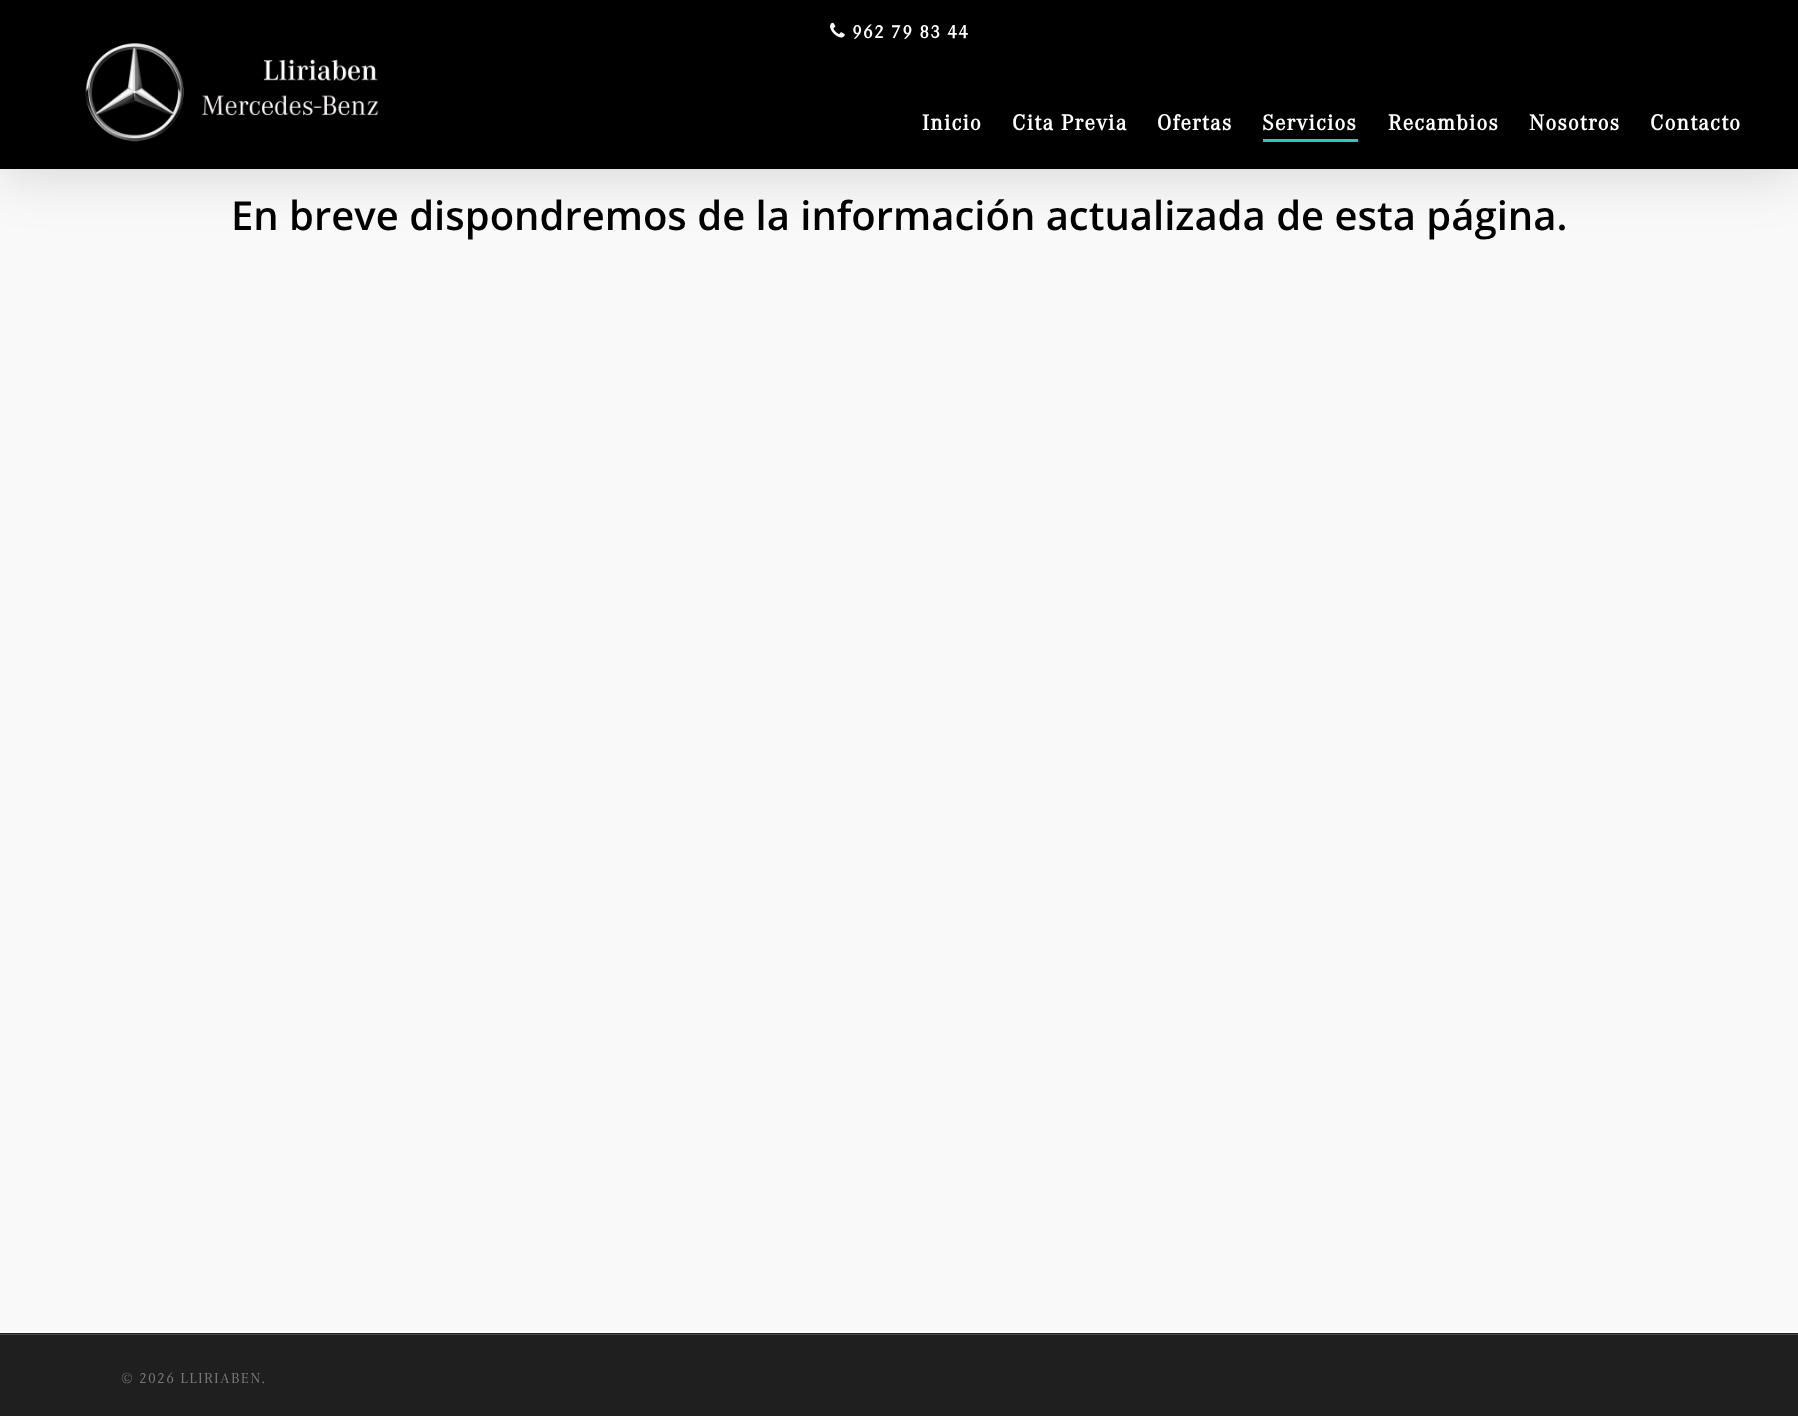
<svg xmlns="http://www.w3.org/2000/svg" width="1798" height="1416" viewBox="0 0 1798 1416">
  <style>
    .t1 { font: bold 18.75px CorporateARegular; letter-spacing: 1.25px; fill: #fff; }
    .t2 { font: bold 22.5px CorporateARegular; letter-spacing: 1.25px; fill: #fff; }
    .t3 { font: 600 40px Open Sans; fill: #000; }
    .t4 { font: 15px CorporateARegular; letter-spacing: 1.25px; fill: #777; }
  </style>
  <rect width="100%" height="100%" fill="#f9f9f9"/>
  <rect x="0" y="4" width="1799" height="169" fill="#00000026" filter="blur(28px)"/>
  <rect x="0" y="0" width="1798" height="169" fill="#000"/>
  <image x="830" y="22" width="15" height="16" href="images/1.png"/>
  <text x="852" y="38" class="t1">962 79 83 44</text>
  <image x="85" y="43" width="294" height="99" href="images/2.png"/>
  <text x="922" y="130" class="t2">Inicio</text>
  <text x="1012" y="130" class="t2">Cita Previa</text>
  <text x="1157" y="130" class="t2">Ofertas</text>
  <text x="1262" y="130" class="t2">Servicios</text>
  <rect x="1263" y="139" width="95" height="3" fill="#27ccc0"/>
  <text x="1388" y="130" class="t2">Recambios</text>
  <text x="1529" y="130" class="t2">Nosotros</text>
  <text x="1650" y="130" class="t2">Contacto</text>
  <text x="231" y="230" class="t3">En breve dispondremos de la información actualizada de esta página.</text>
  <rect x="0" y="1333" width="1798" height="1" fill="#212121"/>
  <rect x="0" y="1335" width="1798" height="81" fill="#1f1f1f"/>
  <rect x="0" y="1334" width="1798" height="1" fill="#474747"/>
  <text x="121" y="1383" class="t4">© 2026 LLIRIABEN.</text>
</svg>
